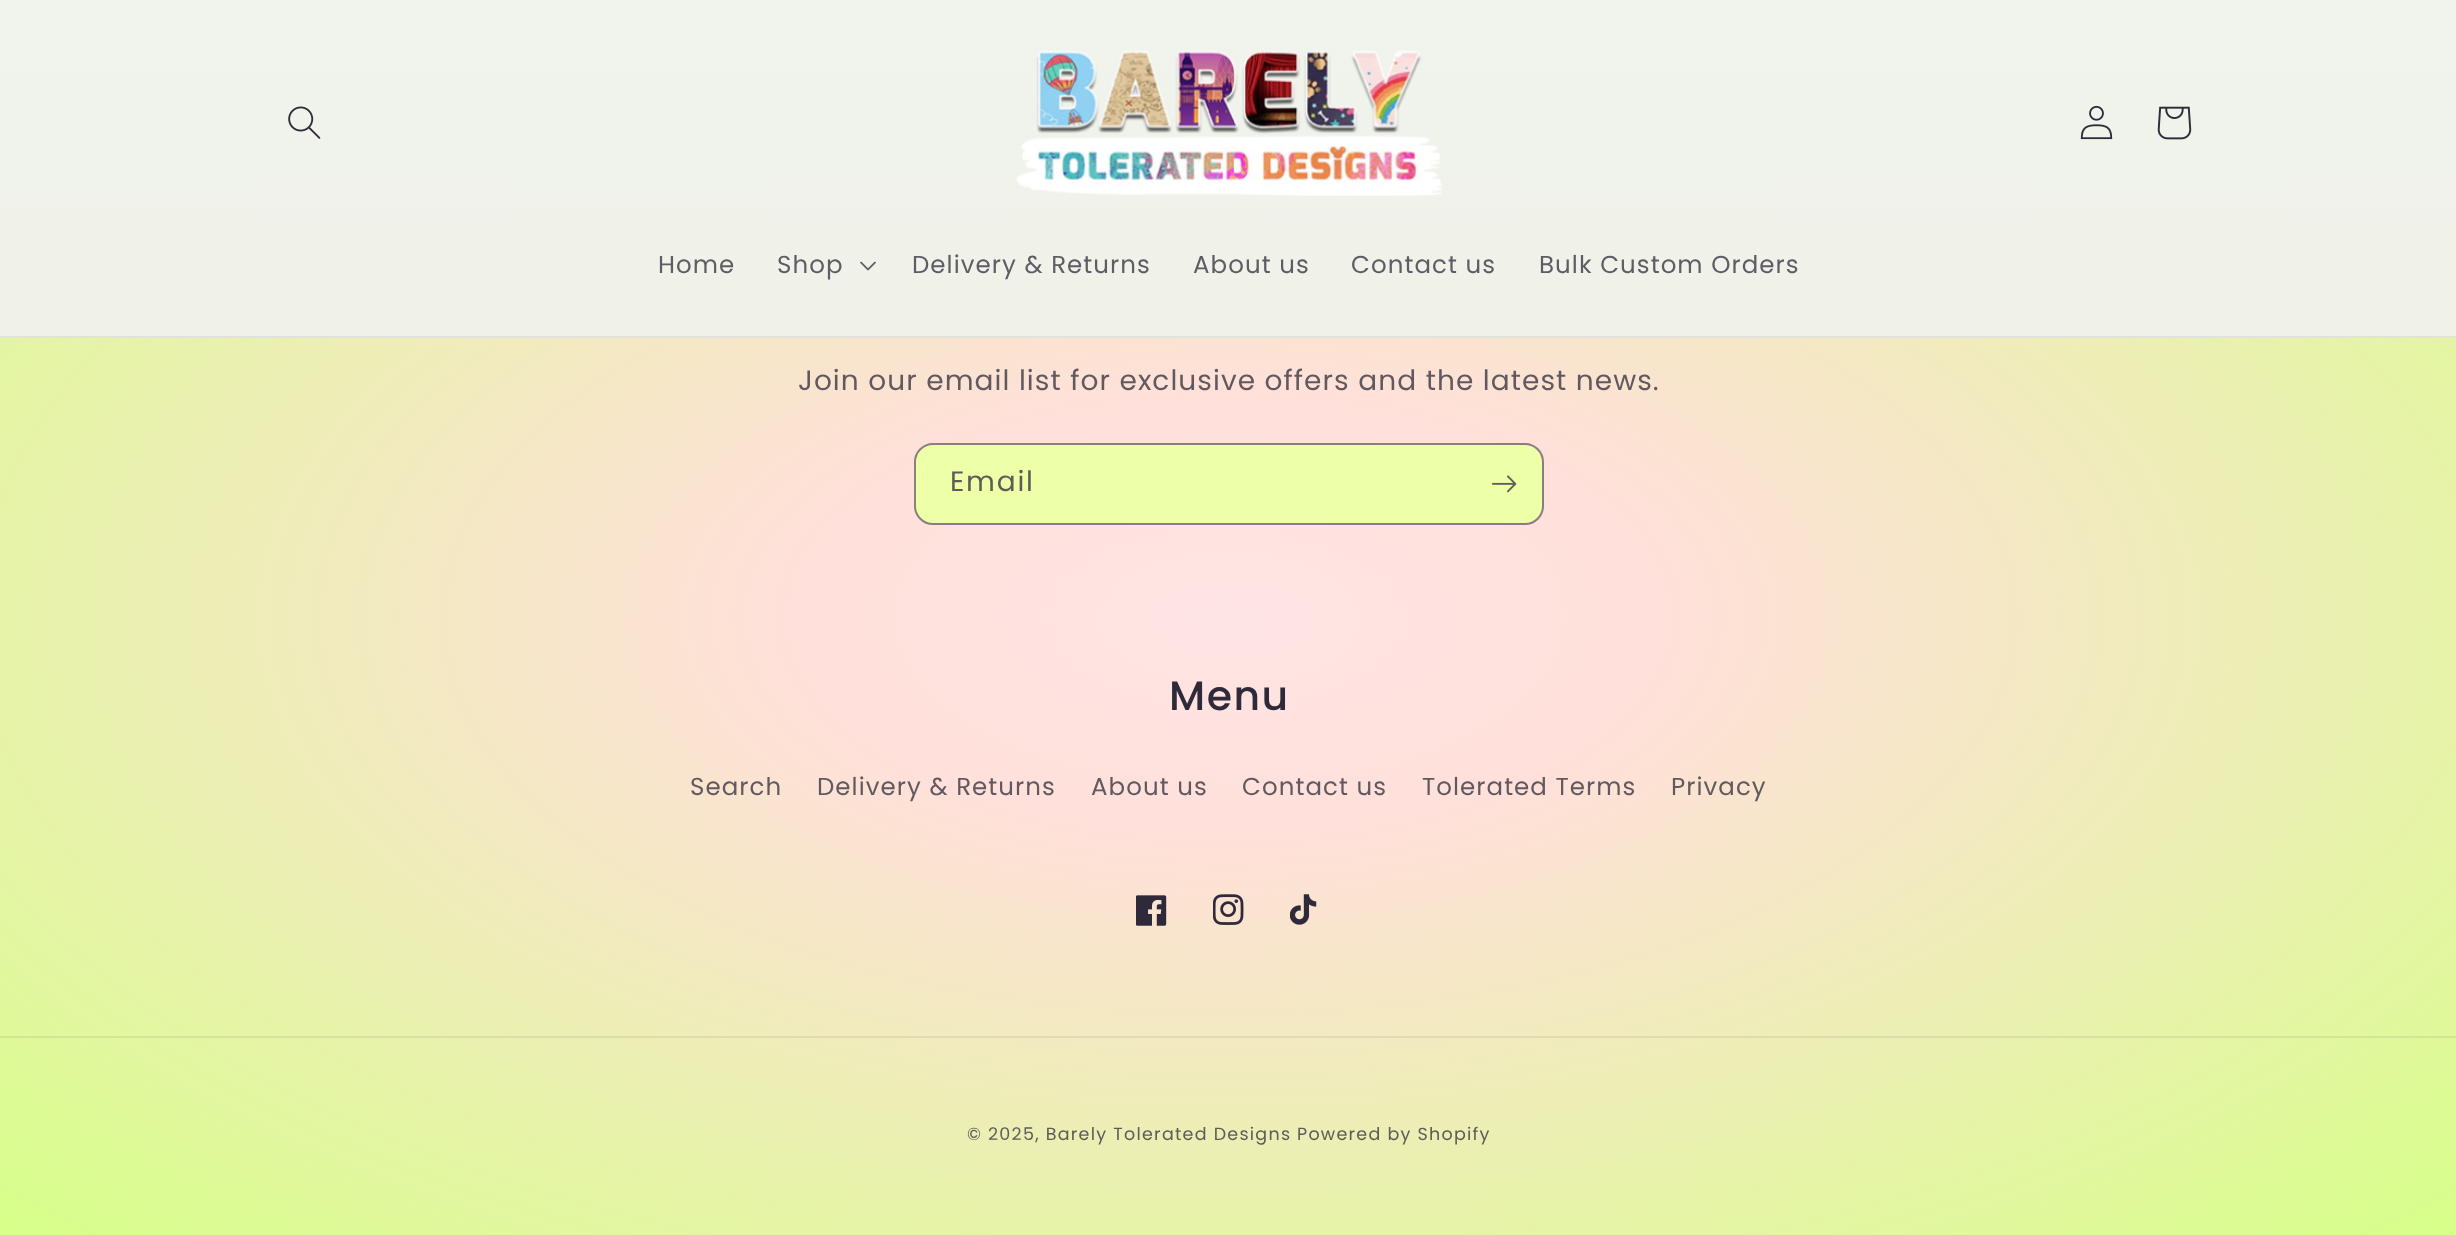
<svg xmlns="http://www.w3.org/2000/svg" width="2456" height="1235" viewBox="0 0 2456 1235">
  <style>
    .t1 { font: 24.5px Poppins; letter-spacing: 1.05px; fill: #5f5c65; }
    .t2 { font: 28px Poppins; letter-spacing: 1.05px; fill: #61595f; }
    .t3 { font: 28px Poppins; letter-spacing: 1.75px; fill: #5e5b58; }
    .t4 { font: 500 41px Poppins; letter-spacing: 1.5px; fill: #2e2a39; }
    .t5 { font: 24.5px Poppins; letter-spacing: 1.05px; fill: #61595f; }
    .t6 { font: 17.5px Poppins; letter-spacing: 1.25px; fill: #5e5b58; }
  </style>
  <defs>
    <linearGradient id="g1" gradientUnits="userSpaceOnUse" x1="1229" y1="0" x2="1229" y2="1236"><stop offset="0" stop-color="#f0f4ec"/><stop offset="1" stop-color="#f1ebe2"/></linearGradient>
    <radialGradient id="g2" gradientUnits="userSpaceOnUse" cx="0" cy="0" r="1" gradientTransform="matrix(1737 0 0 874 1229 618)"><stop offset="0" stop-color="#ffe5e5"/><stop offset="0.25" stop-color="#ffe0da"/><stop offset="1" stop-color="#d7ff89"/></radialGradient>
    <radialGradient id="g3" gradientUnits="userSpaceOnUse" cx="0" cy="0" r="1" gradientTransform="matrix(1737 0 0 874 1229 618)"><stop offset="0" stop-color="#eed6d7"/><stop offset="0.25" stop-color="#eed1cd"/><stop offset="1" stop-color="#c9ee83"/></radialGradient>
  </defs>
  <rect width="100%" height="100%" fill="#fff"/>
  <rect x="0" y="0" width="2456" height="336" fill="url(#g1)"/>
  <rect x="0" y="336" width="2456" height="2" fill="#e0e2db"/>
  <image x="288" y="106" width="33" height="33" href="images/1.png"/>
  <image x="1016" y="50" width="426" height="146" href="images/2.png"/>
  <image x="2080" y="105" width="33" height="35" href="images/3.png"/>
  <image x="2157" y="106" width="35" height="34" href="images/4.png"/>
  <text x="658" y="273" class="t1">Home</text>
  <text x="777" y="273" class="t1">Shop</text>
  <image x="860" y="261" width="16" height="10" href="images/5.png"/>
  <text x="912" y="273" class="t1">Delivery &amp; Returns</text>
  <text x="1193" y="273" class="t1">About us</text>
  <text x="1351" y="273" class="t1">Contact us</text>
  <text x="1539" y="273" class="t1">Bulk Custom Orders</text>
  <rect x="0" y="338" width="2456" height="278" fill="url(#g2)"/>
  <text x="798" y="390" class="t2">Join our email list for exclusive offers and the latest news.</text>
  <rect x="915" y="445" width="627" height="78" rx="18" fill="#edffa7"/>
  <rect x="915" y="444" width="628" height="80" rx="18" fill="none" stroke="#2e2a398c" stroke-width="2"/>
  <text x="950" y="491" class="t3">Email</text>
  <image x="1492" y="475" width="25" height="18" href="images/6.png"/>
  <rect x="0" y="616" width="2456" height="619" fill="url(#g2)"/>
  <rect x="0" y="1036" width="2456" height="2" fill="url(#g3)"/>
  <text x="1169" y="710" class="t4">Menu</text>
  <text x="690" y="795" class="t5">Search</text>
  <text x="817" y="795" class="t5">Delivery &amp; Returns</text>
  <text x="1091" y="795" class="t5">About us</text>
  <text x="1242" y="795" class="t5">Contact us</text>
  <text x="1422" y="795" class="t5">Tolerated Terms</text>
  <text x="1671" y="795" class="t5">Privacy</text>
  <image x="1136" y="895" width="31" height="31" href="images/7.png"/>
  <image x="1213" y="894" width="31" height="31" href="images/8.png"/>
  <image x="1290" y="894" width="27" height="31" href="images/9.png"/>
  <text x="967" y="1140" class="t6">© 2025, Barely Tolerated Designs</text>
  <text x="1297" y="1140" class="t6">Powered by Shopify</text>
</svg>
